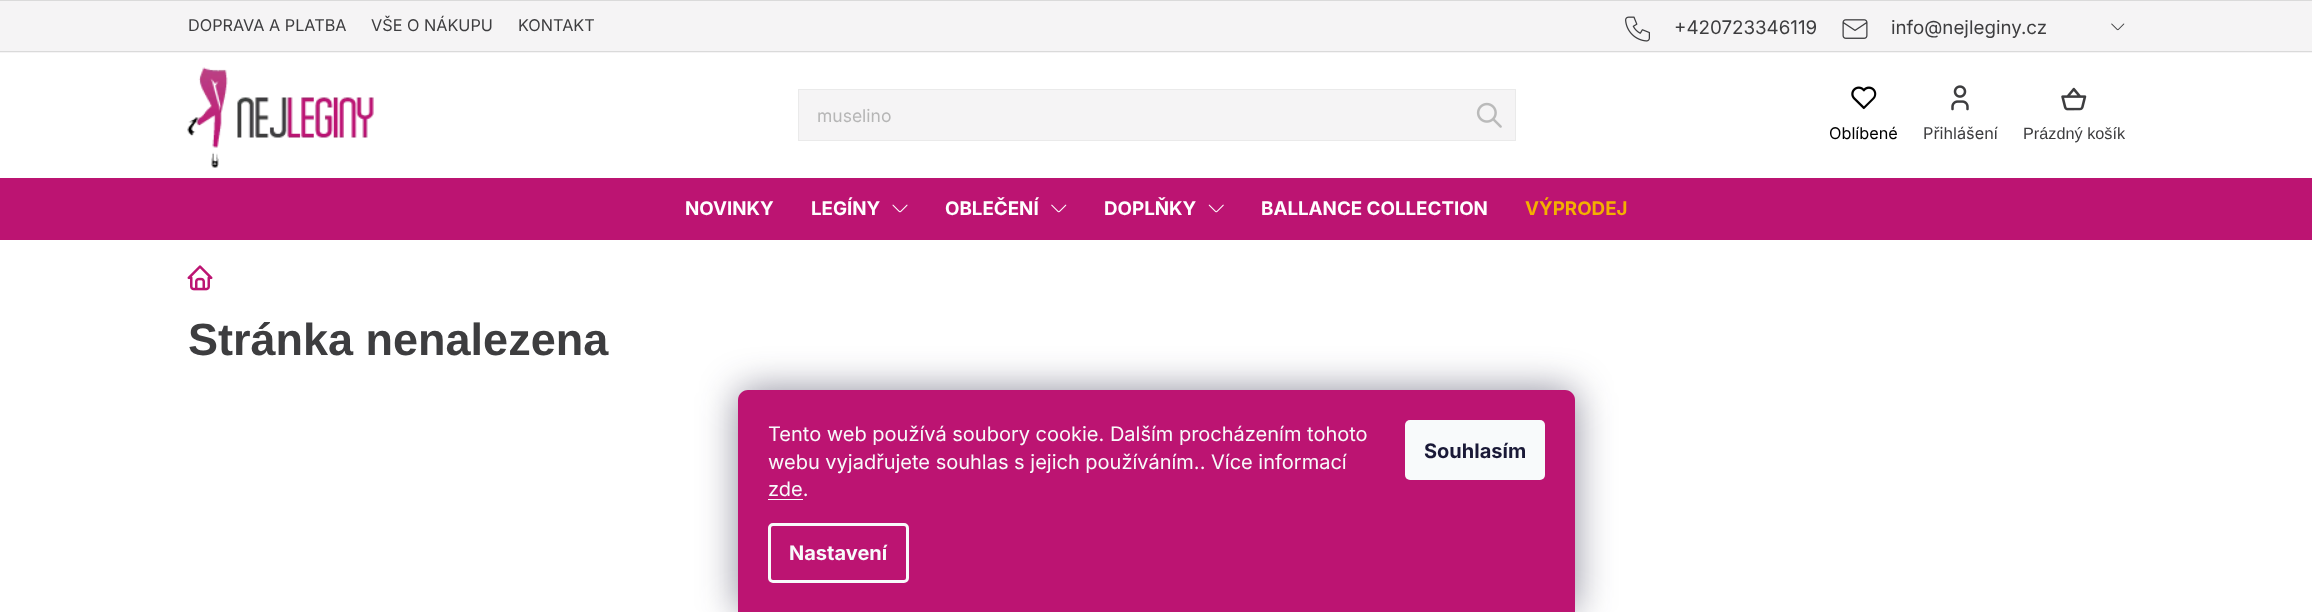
<svg xmlns="http://www.w3.org/2000/svg" width="2312" height="612" viewBox="0 0 2312 612">
  <style>
    .t1 { font: 16.25px Inter; fill: #3d3d3f; }
    .t2 { font: 18.75px Inter; fill: #3d3d3f; }
    .t3 { font: 17.5px Inter; fill: #b6b6b6; }
    .t4 { font: 16.25px Inter; fill: #000; }
    .t5 { font: 16.25px Liberation Sans; fill: #3d3d3f; }
    .t6 { font: bold 18.75px Inter; fill: #fff; }
    .t7 { font: bold 18.75px Inter; fill: #f4b000; }
    .t8 { font: bold 45px Liberation Sans; fill: #3d3d3f; }
    .t9 { font: 20px Inter; fill: #f8fafb; }
    .t10 { font: bold 20px Inter; fill: #f8fafb; }
    .t11 { font: bold 20px Inter; fill: #1a1937; }
  </style>
  <rect width="100%" height="100%" fill="#fff"/>
  <rect x="0" y="1" width="2312" height="52" fill="#f5f4f5"/>
  <rect x="0" y="0" width="2312" height="1" fill="#dadada"/>
  <rect x="0" y="51" width="2312" height="1" fill="#dadada"/>
  <text x="188" y="31" class="t1">DOPRAVA A PLATBA</text>
  <text x="371" y="31" class="t1">VŠE O NÁKUPU</text>
  <text x="518" y="31" class="t1">KONTAKT</text>
  <image x="1625" y="16" width="25" height="26" href="images/1.png"/>
  <text x="1674" y="34" class="t2">+420723346119</text>
  <image x="1842" y="19" width="26" height="20" href="images/2.png"/>
  <text x="1891" y="34" class="t2">info@nejleginy.cz</text>
  <image x="2111" y="23" width="14" height="8" href="images/3.png"/>
  <image x="187" y="67" width="187" height="101" href="images/4.png"/>
  <rect x="798.5" y="89.5" width="717" height="51" fill="#f5f4f5" stroke="#eaeaea"/>
  <text x="817" y="122" class="t3">muselino</text>
  <image x="1476" y="102" width="26" height="26" href="images/5.png"/>
  <image x="1851" y="86" width="26" height="24" href="images/6.png"/>
  <text x="1829" y="139" class="t4">Oblíbené</text>
  <image x="1951" y="85" width="18" height="26" href="images/7.png"/>
  <text x="1923" y="139" class="t1">Přihlášení</text>
  <image x="2061" y="87" width="26" height="24" href="images/8.png"/>
  <text x="2023" y="139" class="t5">Prázdný košík</text>
  <rect x="0" y="178" width="2312" height="62" fill="#bc1472"/>
  <text x="685" y="215" class="t6">NOVINKY</text>
  <text x="811" y="215" class="t6">LEGÍNY</text>
  <image x="892" y="204" width="16" height="9" href="images/9.png"/>
  <text x="945" y="215" class="t6">OBLEČENÍ</text>
  <image x="1051" y="204" width="16" height="9" href="images/10.png"/>
  <text x="1104" y="215" class="t6">DOPLŇKY</text>
  <image x="1208" y="204" width="16" height="9" href="images/11.png"/>
  <text x="1261" y="215" class="t6">BALLANCE COLLECTION</text>
  <text x="1525" y="215" class="t7">VÝPRODEJ</text>
  <image x="187" y="265" width="26" height="26" href="images/12.png"/>
  <text x="188" y="355" class="t8">Stránka nenalezena</text>
  <rect x="738" y="390" width="837" height="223" rx="10" fill="#1b193980" filter="blur(19px)"/>
  <path d="M748 390H1565C1570.5 390 1575 394.5 1575 400V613H738V400C738 394.5 742.5 390 748 390Z" fill="#bc1472"/>
  <text x="768" y="441" class="t9">Tento web používá soubory cookie. Dalším procházením tohoto</text>
  <text x="768" y="469" class="t9">webu vyjadřujete souhlas s jejich používáním.. Více informací</text>
  <text x="768" y="496" class="t9">zde.</text>
  <rect x="768" y="499" width="35" height="1" fill="#f8fafb"/>
  <rect x="769.5" y="524.5" width="138" height="57" rx="3.5" fill="none" stroke="#f8fafb" stroke-width="3"/>
  <text x="789" y="560" class="t10">Nastavení</text>
  <rect x="1405" y="420" width="140" height="60" rx="5" fill="#f8fafb"/>
  <text x="1424" y="458" class="t11">Souhlasím</text>
</svg>
